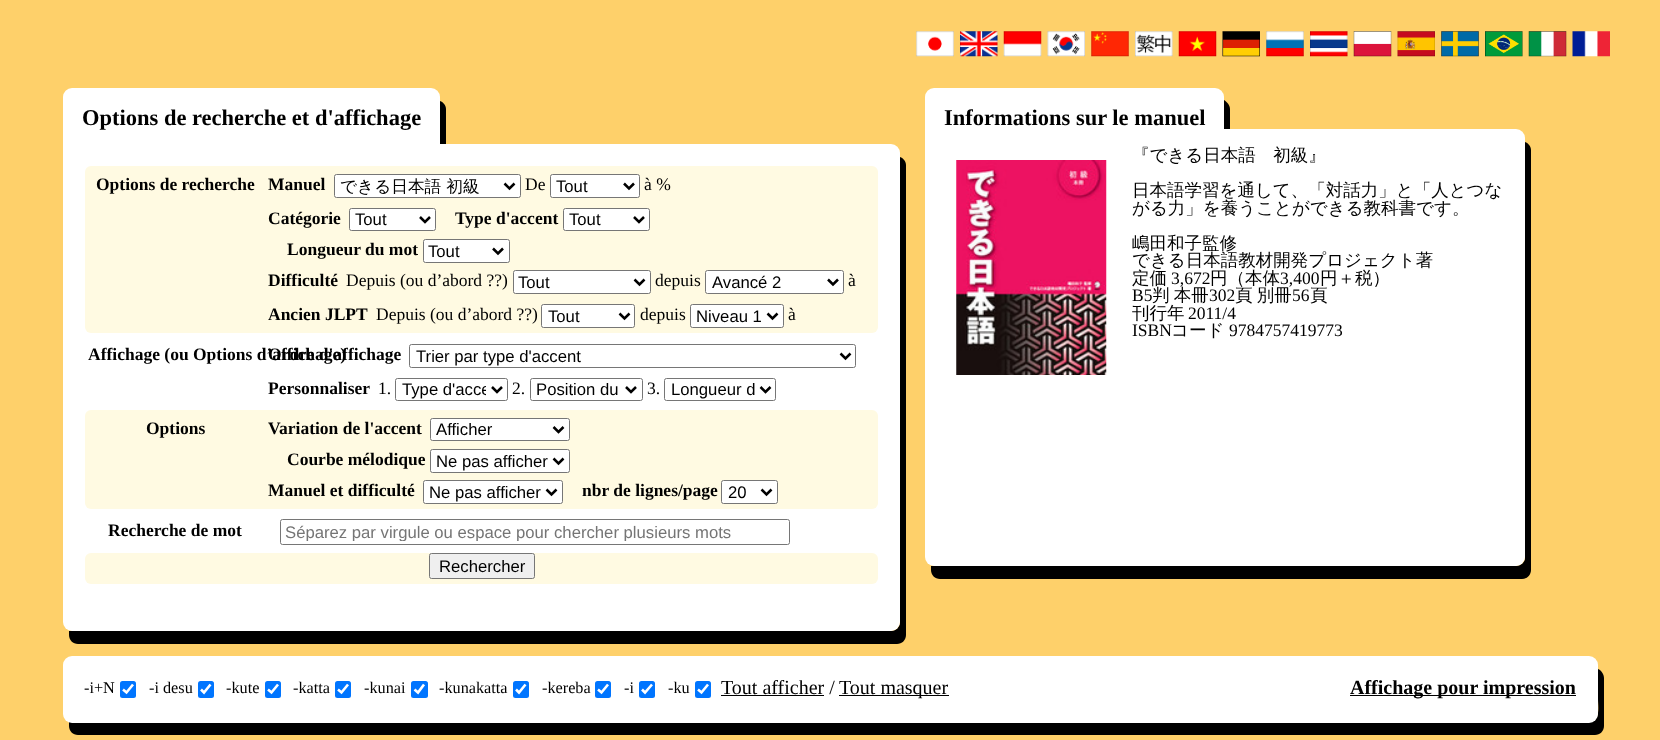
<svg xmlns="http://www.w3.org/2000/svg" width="1660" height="740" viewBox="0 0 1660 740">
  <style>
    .t1 { font: bold 22.5px Liberation Serif; fill: #000; }
    .t2 { font: bold 17.5px Liberation Serif; fill: #000; }
    .t3 { font: 500 16.7px WenQuanYi Zen Hei; fill: #000; }
    .t4 { font: 17.5px Liberation Serif; fill: #000; }
    .t5 { font: 16.7px Liberation Sans; fill: #000; }
    .t6 { font: 16.7px Liberation Sans; fill: #757575; }
    .t7 { font: 500 17.5px WenQuanYi Zen Hei; fill: #000; }
    .t8 { font: 16.25px Liberation Serif; fill: #000; }
    .t9 { font: 20px Liberation Serif; fill: #000; }
    .t10 { font: bold 20px Liberation Serif; fill: #000; }
  </style>
  <defs>
    <clipPath id="clip1"><rect x="401" y="379" width="85" height="21"/></clipPath>
    <clipPath id="clip2"><rect x="285" y="523" width="500" height="18"/></clipPath>
  </defs>
  <rect width="100%" height="100%" fill="#fed06a"/>
  <image x="916" y="31" width="38" height="26" href="images/1.png"/>
  <image x="960" y="31" width="38" height="26" href="images/2.png"/>
  <image x="1003" y="31" width="39" height="26" href="images/3.png"/>
  <image x="1047" y="31" width="38" height="26" href="images/4.png"/>
  <image x="1091" y="31" width="38" height="26" href="images/5.png"/>
  <image x="1135" y="31" width="38" height="26" href="images/6.png"/>
  <image x="1178" y="31" width="39" height="26" href="images/7.png"/>
  <image x="1222" y="31" width="38" height="26" href="images/8.png"/>
  <image x="1266" y="31" width="38" height="26" href="images/9.png"/>
  <image x="1310" y="31" width="38" height="26" href="images/10.png"/>
  <image x="1353" y="31" width="39" height="26" href="images/11.png"/>
  <image x="1397" y="31" width="38" height="26" href="images/12.png"/>
  <image x="1441" y="31" width="38" height="26" href="images/13.png"/>
  <image x="1485" y="31" width="38" height="26" href="images/14.png"/>
  <image x="1528" y="31" width="39" height="26" href="images/15.png"/>
  <image x="1572" y="31" width="38" height="26" href="images/16.png"/>
  <path d="M69 162V166C69 171 73 175 78 175H437C442 175 446 171 446 166V109C446 105 443 102 440 101V145C440 152 441 162 431 162Z" fill="#000"/>
  <rect x="63" y="88" width="377" height="75" rx="9" fill="#fff"/>
  <text x="82" y="125" class="t1">Options de recherche et d'affichage</text>
  <path d="M69 631V635C69 640 73 644 78 644H897C902 644 906 640 906 635V165C906 161 903 158 900 157V622C900 627 896 631 891 631Z" fill="#000"/>
  <rect x="63" y="144" width="837" height="487" rx="9" fill="#fff"/>
  <rect x="85" y="166" width="793" height="167" rx="6" fill="#fffae2"/>
  <text x="96" y="190" class="t2">Options de recherche</text>
  <text x="268" y="190" class="t2">Manuel</text>
  <rect x="334.5" y="174.5" width="186" height="23" rx="2" fill="#fff" stroke="#767676"/>
  <path d="M504.5 183.5L509.5 188.5L514.5 183.5" fill="none" stroke="#000" stroke-width="2.5"/>
  <text x="340" y="192" class="t3">できる日本語 初級</text>
  <text x="525" y="190" class="t4">De</text>
  <rect x="550.5" y="174.5" width="89" height="23" rx="2" fill="#fff" stroke="#767676"/>
  <path d="M624 183.5L629 188.5L634 183.5" fill="none" stroke="#000" stroke-width="2.5"/>
  <text x="556" y="192" class="t5">Tout</text>
  <text x="644" y="190" class="t4">à %</text>
  <text x="268" y="224" class="t2">Catégorie</text>
  <rect x="349.5" y="208.5" width="86" height="22" rx="2" fill="#fff" stroke="#767676"/>
  <path d="M420 217L425 222L430 217" fill="none" stroke="#000" stroke-width="2.5"/>
  <text x="355" y="225" class="t5">Tout</text>
  <text x="455" y="224" class="t2">Type d'accent</text>
  <rect x="563.5" y="208.5" width="86" height="22" rx="2" fill="#fff" stroke="#767676"/>
  <path d="M634 217L639 222L644 217" fill="none" stroke="#000" stroke-width="2.5"/>
  <text x="569" y="225" class="t5">Tout</text>
  <text x="287" y="255" class="t2">Longueur du mot</text>
  <rect x="423.5" y="239.5" width="86" height="23" rx="2" fill="#fff" stroke="#767676"/>
  <path d="M493 248.5L498 253.5L503 248.5" fill="none" stroke="#000" stroke-width="2.5"/>
  <text x="428" y="257" class="t5">Tout</text>
  <text x="268" y="286" class="t2">Difficulté</text>
  <text x="346" y="286" class="t4">Depuis (ou d’abord ??)</text>
  <rect x="513.5" y="270.5" width="137" height="23" rx="2" fill="#fff" stroke="#767676"/>
  <path d="M634.5 279.5L639.5 284.5L644.5 279.5" fill="none" stroke="#000" stroke-width="2.5"/>
  <text x="518" y="288" class="t5">Tout</text>
  <text x="655" y="286" class="t4">depuis</text>
  <rect x="705.5" y="270.5" width="138" height="23" rx="2" fill="#fff" stroke="#767676"/>
  <path d="M828 279.5L833 284.5L838 279.5" fill="none" stroke="#000" stroke-width="2.5"/>
  <text x="712" y="288" class="t5">Avancé 2</text>
  <text x="848" y="286" class="t4">à</text>
  <text x="268" y="320" class="t2">Ancien JLPT</text>
  <text x="376" y="320" class="t4">Depuis (ou d’abord ??)</text>
  <rect x="541.5" y="304.5" width="93" height="23" rx="2" fill="#fff" stroke="#767676"/>
  <path d="M619.5 313.5L624.5 318.5L629.5 313.5" fill="none" stroke="#000" stroke-width="2.5"/>
  <text x="548" y="322" class="t5">Tout</text>
  <text x="640" y="320" class="t4">depuis</text>
  <rect x="690.5" y="304.5" width="93" height="23" rx="2" fill="#fff" stroke="#767676"/>
  <path d="M767.5 313.5L772.5 318.5L777.5 313.5" fill="none" stroke="#000" stroke-width="2.5"/>
  <text x="696" y="322" class="t5">Niveau 1</text>
  <text x="788" y="320" class="t4">à</text>
  <text x="88" y="360" class="t2">Affichage (ou Options d’affichage)</text>
  <text x="268" y="360" class="t2">Ordre d'affichage</text>
  <rect x="409.5" y="344.5" width="446" height="23" rx="2" fill="none" stroke="#767676"/>
  <path d="M840.5 353.5L845.5 358.5L850.5 353.5" fill="none" stroke="#000" stroke-width="2.5"/>
  <text x="416" y="362" class="t5">Trier par type d'accent</text>
  <text x="268" y="394" class="t2">Personnaliser</text>
  <text x="378" y="394" class="t4">1.</text>
  <rect x="395.5" y="378.5" width="112" height="22" rx="2" fill="none" stroke="#767676"/>
  <path d="M492 387L497 392L502 387" fill="none" stroke="#000" stroke-width="2.5"/>
  <g clip-path="url(#clip1)">
    <text x="402" y="395" class="t5">Type d'acce</text>
  </g>
  <text x="512" y="394" class="t4">2.</text>
  <rect x="530.5" y="378.5" width="112" height="22" rx="2" fill="none" stroke="#767676"/>
  <path d="M626 387L631 392L636 387" fill="none" stroke="#000" stroke-width="2.5"/>
  <text x="536" y="395" class="t5">Position du</text>
  <text x="647" y="394" class="t4">3.</text>
  <rect x="664.5" y="378.5" width="111" height="22" rx="2" fill="none" stroke="#767676"/>
  <path d="M760.5 387L765.5 392L770.5 387" fill="none" stroke="#000" stroke-width="2.5"/>
  <text x="671" y="395" class="t5">Longueur d</text>
  <rect x="85" y="410" width="793" height="99" rx="6" fill="#fffae2"/>
  <text x="146" y="434" class="t2">Options</text>
  <text x="268" y="434" class="t2">Variation de l'accent</text>
  <rect x="430.5" y="418.5" width="139" height="22" rx="2" fill="#fff" stroke="#767676"/>
  <path d="M553.5 427L558.5 432L563.5 427" fill="none" stroke="#000" stroke-width="2.5"/>
  <text x="436" y="435" class="t5">Afficher</text>
  <text x="287" y="465" class="t2">Courbe mélodique</text>
  <rect x="430.5" y="449.5" width="139" height="23" rx="2" fill="#fff" stroke="#767676"/>
  <path d="M553.5 458.5L558.5 463.5L563.5 458.5" fill="none" stroke="#000" stroke-width="2.5"/>
  <text x="436" y="467" class="t5">Ne pas afficher</text>
  <text x="268" y="496" class="t2">Manuel et difficulté</text>
  <rect x="423.5" y="480.5" width="139" height="23" rx="2" fill="#fff" stroke="#767676"/>
  <path d="M546.5 489.5L551.5 494.5L556.5 489.5" fill="none" stroke="#000" stroke-width="2.5"/>
  <text x="429" y="498" class="t5">Ne pas afficher</text>
  <text x="582" y="496" class="t2">nbr de lignes/page</text>
  <rect x="721.5" y="480.5" width="56" height="23" rx="2" fill="#fff" stroke="#767676"/>
  <path d="M761.5 489.5L766.5 494.5L771.5 489.5" fill="none" stroke="#000" stroke-width="2.5"/>
  <text x="728" y="498" class="t5">20</text>
  <text x="108" y="536" class="t2">Recherche de mot</text>
  <rect x="280.5" y="519.5" width="509" height="25" rx="2" fill="none" stroke="#767676"/>
  <g clip-path="url(#clip2)">
    <text x="285" y="538" class="t6">Séparez par virgule ou espace pour chercher plusieurs mots</text>
  </g>
  <rect x="85" y="553" width="793" height="31" rx="6" fill="#fffae2"/>
  <rect x="429.5" y="553.5" width="105" height="25" rx="2" fill="#efefef" stroke="#767676"/>
  <text x="439" y="572" class="t5">Rechercher</text>
  <path d="M931 147V151C931 156 935 160 940 160H1221C1226 160 1230 156 1230 151V109C1230 105 1227 102 1224 100V139C1224 144 1220 148 1215 148H934Z" fill="#000"/>
  <rect x="925" y="88" width="299" height="60" rx="9" fill="#fff"/>
  <text x="944" y="125" class="t1">Informations sur le manuel</text>
  <path d="M931 566V570C931 575 935 579 940 579H1522C1527 579 1531 575 1531 570V150C1531 146 1528 143 1525 142V558C1525 562 1521 566 1516 566H934Z" fill="#000"/>
  <rect x="925" y="129" width="600" height="437" rx="9" fill="#fff"/>
  <image x="956" y="160" width="151" height="215" href="images/17.png"/>
  <text x="1132" y="161" class="t7">『できる日本語　初級』</text>
  <text x="1132" y="196" class="t7">日本語学習を通して、「対話力」と「人とつな</text>
  <text x="1132" y="214" class="t7">がる力」を養うことができる教科書です。</text>
  <text x="1132" y="249" class="t7">嶋田和子監修</text>
  <text x="1132" y="266" class="t7">できる日本語教材開発プロジェクト著</text>
  <text x="1132" y="284" class="t7">定価</text>
  <text x="1171" y="284" class="t4">3,672</text>
  <text x="1210" y="284" class="t7">円（本体</text>
  <text x="1280" y="284" class="t4">3,400</text>
  <text x="1320" y="284" class="t7">円＋税）</text>
  <text x="1132" y="301" class="t4">B5</text>
  <text x="1152" y="301" word-spacing="-1" class="t7">判 本冊</text>
  <text x="1209" y="301" class="t4">302</text>
  <text x="1235" y="301" word-spacing="-1" class="t7">頁 別冊</text>
  <text x="1292" y="301" class="t4">56</text>
  <text x="1310" y="301" class="t7">頁</text>
  <text x="1132" y="319" class="t7">刊行年</text>
  <text x="1188" y="319" class="t4">2011/4</text>
  <text x="1132" y="336" class="t4">ISBN</text>
  <text x="1171" y="336" class="t7">コード</text>
  <text x="1229" y="336" class="t4">9784757419773</text>
  <path d="M69 722V726C69 731 73 735 78 735H1595C1600 735 1604 731 1604 726V678C1604 674 1601 670 1598 669V699C1598 706 1601 722 1589 722Z" fill="#000"/>
  <rect x="63" y="656" width="1535" height="67" rx="9" fill="#fff"/>
  <text x="84" y="693" class="t8">-i+N</text>
  <rect x="120" y="681" width="16" height="17" rx="2.5" fill="#0075ff"/>
  <path d="M123 689.5L126.5 692.5L133 684.5" fill="none" stroke="#fff" stroke-width="2.6"/>
  <text x="149" y="693" class="t8">-i desu</text>
  <rect x="198" y="681" width="16" height="17" rx="2.5" fill="#0075ff"/>
  <path d="M201 689.5L204 692.5L210.5 684.5" fill="none" stroke="#fff" stroke-width="2.6"/>
  <text x="226" y="693" class="t8">-kute</text>
  <rect x="265" y="681" width="16" height="17" rx="2.5" fill="#0075ff"/>
  <path d="M268 689.5L271.5 692.5L278 684.5" fill="none" stroke="#fff" stroke-width="2.6"/>
  <text x="293" y="693" class="t8">-katta</text>
  <rect x="335" y="681" width="16" height="17" rx="2.5" fill="#0075ff"/>
  <path d="M338 689.5L341.5 692.5L348 684.5" fill="none" stroke="#fff" stroke-width="2.6"/>
  <text x="364" y="693" class="t8">-kunai</text>
  <rect x="411" y="681" width="17" height="17" rx="2.5" fill="#0075ff"/>
  <path d="M414.5 689.5L418 692.5L424 684.5" fill="none" stroke="#fff" stroke-width="2.6"/>
  <text x="439" y="693" class="t8">-kunakatta</text>
  <rect x="513" y="681" width="16" height="17" rx="2.5" fill="#0075ff"/>
  <path d="M516 689.5L519 692.5L525.5 684.5" fill="none" stroke="#fff" stroke-width="2.6"/>
  <text x="542" y="693" class="t8">-kereba</text>
  <rect x="595" y="681" width="16" height="17" rx="2.5" fill="#0075ff"/>
  <path d="M598 689.5L601.5 692.5L608 684.5" fill="none" stroke="#fff" stroke-width="2.6"/>
  <text x="624" y="693" class="t8">-i</text>
  <rect x="639" y="681" width="16" height="17" rx="2.5" fill="#0075ff"/>
  <path d="M642 689.5L645 692.5L652 684.5" fill="none" stroke="#fff" stroke-width="2.6"/>
  <text x="668" y="693" class="t8">-ku</text>
  <rect x="695" y="681" width="16" height="17" rx="2.5" fill="#0075ff"/>
  <path d="M698 689.5L701.5 692.5L708 684.5" fill="none" stroke="#fff" stroke-width="2.6"/>
  <text x="721" y="694" class="t9">Tout afficher /</text>
  <rect x="721" y="695" width="103" height="1" fill="#000"/>
  <rect x="839" y="695" width="110" height="1" fill="#000"/>
  <text x="839" y="694" class="t9">Tout masquer</text>
  <rect x="1350" y="695" width="226" height="1" fill="#000"/>
  <text x="1350" y="694" class="t10">Affichage pour impression</text>
</svg>
